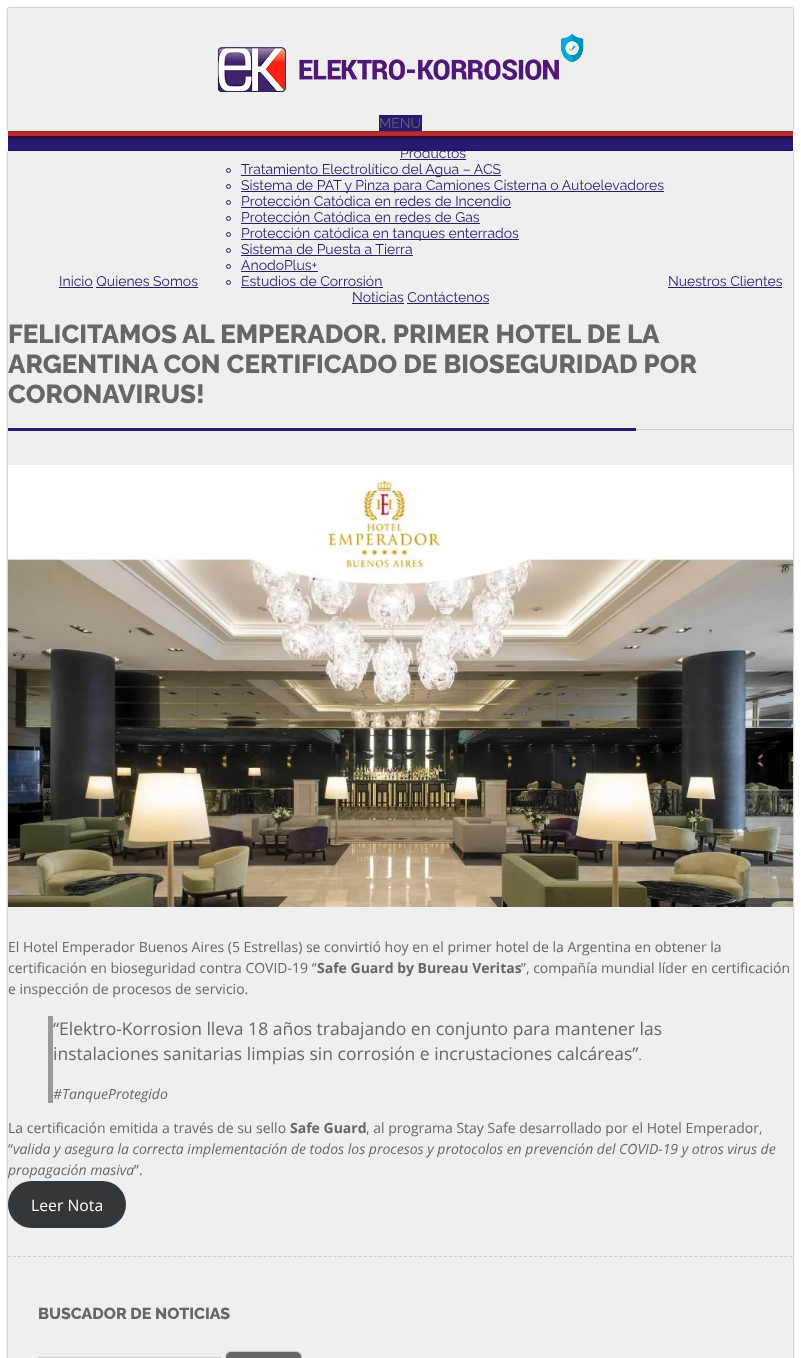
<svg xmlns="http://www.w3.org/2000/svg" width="801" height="1358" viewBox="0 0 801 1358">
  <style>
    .t1 { font: 14px Raleway; fill: #666; }
    .t2 { font: 14px Raleway; fill: #281a6e; }
    .t3 { font: 800 26px Raleway; fill: #666; }
    .t4 { font: 14px Open Sans; fill: #666; }
    .t5 { font: bold 14px Open Sans; fill: #666; }
    .t6 { font: 17.5px Open Sans; fill: #666; }
    .t7 { font: 300 17.5px Open Sans; fill: #666; }
    .t8 { font: italic 14px Open Sans; fill: #666; }
    .t9 { font: 15.75px Open Sans; fill: #fff; }
    .t10 { font: 800 16px Raleway; fill: #666; }
  </style>
  <rect width="100%" height="100%" fill="#fff"/>
  <image x="8" y="131" width="785" height="20" href="images/2.png"/>
  <rect x="8" y="8" width="785" height="123" fill="#00000080" filter="blur(1px)"/>
  <rect x="8" y="8" width="785" height="123" fill="#efefef"/>
  <image x="217" y="34" width="367" height="58" href="images/1.png"/>
  <rect x="379" y="115" width="43" height="16" fill="#271971"/>
  <text x="379" y="128" class="t1">MENU</text>
  <rect x="8" y="151" width="785" height="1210" fill="#00000080" filter="blur(1px)"/>
  <rect x="8" y="151" width="785" height="1207" fill="#efefef"/>
  <text x="59" y="286" class="t2">Inicio Quienes Somos</text>
  <rect x="59" y="287" width="34" height="1" fill="#281a6e"/>
  <text x="400" y="158" class="t2">Productos</text>
  <rect x="400" y="159" width="66" height="1" fill="#281a6e"/>
  <circle cx="228.5" cy="170.5" r="2" fill="none" stroke="#281a6e"/>
  <rect x="241" y="175" width="260" height="1" fill="#281a6e"/>
  <text x="241" y="174" class="t2">Tratamiento Electrolítico del Agua – ACS</text>
  <circle cx="228.5" cy="186.5" r="2" fill="none" stroke="#281a6e"/>
  <rect x="241" y="191" width="423" height="1" fill="#281a6e"/>
  <text x="241" y="190" class="t2">Sistema de PAT y Pinza para Camiones Cisterna o Autoelevadores</text>
  <circle cx="228.5" cy="202.5" r="2" fill="none" stroke="#281a6e"/>
  <text x="241" y="206" class="t2">Protección Catódica en redes de Incendio</text>
  <rect x="241" y="207" width="270" height="1" fill="#281a6e"/>
  <circle cx="228.5" cy="218.5" r="2" fill="none" stroke="#281a6e"/>
  <text x="241" y="222" class="t2">Protección Catódica en redes de Gas</text>
  <rect x="241" y="223" width="239" height="1" fill="#281a6e"/>
  <circle cx="228.5" cy="234.5" r="2" fill="none" stroke="#281a6e"/>
  <rect x="241" y="239" width="278" height="1" fill="#281a6e"/>
  <text x="241" y="238" class="t2">Protección catódica en tanques enterrados</text>
  <circle cx="228.5" cy="250.5" r="2" fill="none" stroke="#281a6e"/>
  <text x="241" y="254" class="t2">Sistema de Puesta a Tierra</text>
  <rect x="241" y="255" width="172" height="1" fill="#281a6e"/>
  <circle cx="228.5" cy="266.5" r="2" fill="none" stroke="#281a6e"/>
  <text x="241" y="270" class="t2">AnodoPlus+</text>
  <rect x="241" y="271" width="77" height="1" fill="#281a6e"/>
  <circle cx="228.5" cy="282.5" r="2" fill="none" stroke="#281a6e"/>
  <text x="241" y="286" class="t2">Estudios de Corrosión</text>
  <rect x="241" y="287" width="142" height="1" fill="#281a6e"/>
  <text x="668" y="286" class="t2">Nuestros Clientes</text>
  <rect x="668" y="287" width="114" height="1" fill="#281a6e"/>
  <rect x="96" y="287" width="102" height="1" fill="#281a6e"/>
  <text x="352" y="302" class="t2">Noticias Contáctenos</text>
  <rect x="352" y="303" width="52" height="1" fill="#281a6e"/>
  <rect x="407" y="303" width="82" height="1" fill="#281a6e"/>
  <rect x="636" y="429" width="157" height="1" fill="#ccc"/>
  <text x="8" y="343" class="t3">FELICITAMOS AL EMPERADOR. PRIMER HOTEL DE LA</text>
  <text x="8" y="373" class="t3">ARGENTINA CON CERTIFICADO DE BIOSEGURIDAD POR</text>
  <text x="8" y="403" class="t3">CORONAVIRUS!</text>
  <rect x="8" y="428" width="628" height="3" fill="#271971"/>
  <path d="M8 1256.5H793" fill="none" stroke="#ccc" stroke-dasharray="3 2.01"/>
  <image x="8" y="465" width="785" height="442" href="images/3.png"/>
  <text x="8" y="952" class="t4">El Hotel Emperador Buenos Aires (5 Estrellas) se convirtió hoy en el primer hotel de la Argentina en obtener la</text>
  <text x="8" y="973" class="t4">certificación en bioseguridad contra COVID-19 “</text>
  <text x="317" y="973" class="t5">Safe Guard by Bureau Veritas</text>
  <text x="521" y="973" class="t4">”, compañía mundial líder en certificación</text>
  <text x="8" y="994" class="t4">e inspección de procesos de servicio.</text>
  <rect x="48" y="1016" width="5" height="87" fill="#999"/>
  <text x="53" y="1035" class="t6">“Elektro-Korrosion lleva 18 años trabajando en conjunto para mantener las</text>
  <text x="53" y="1060" class="t6">instalaciones sanitarias limpias sin corrosión e incrustaciones calcáreas”</text>
  <text x="638" y="1060" class="t7">.</text>
  <text x="53" y="1099" class="t8">#TanqueProtegido</text>
  <text x="8" y="1133" class="t4">La certificación emitida a través de su sello</text>
  <text x="290" y="1133" class="t5">Safe Guard</text>
  <text x="366" y="1133" class="t4">, al programa Stay Safe desarrollado por el Hotel Emperador,</text>
  <text x="8" y="1154" class="t4">“</text>
  <text x="13" y="1154" class="t8">valida y asegura la correcta implementación de todos los procesos y protocolos en prevención del COVID-19 y otros virus de</text>
  <text x="8" y="1175" class="t8">propagación masiva</text>
  <text x="134" y="1175" class="t4">”.</text>
  <rect x="8" y="1181" width="118" height="47" rx="23.5" fill="#32373c"/>
  <text x="31" y="1211" class="t9">Leer Nota</text>
  <text x="38" y="1319" class="t10">BUSCADOR DE NOTICIAS</text>
  <rect x="38.5" y="1357.5" width="182" height="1" fill="none" stroke="#ccc"/>
  <rect x="225.5" y="1351.5" width="76" height="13" rx="5.5" fill="#666" stroke="#ccc"/>
</svg>
